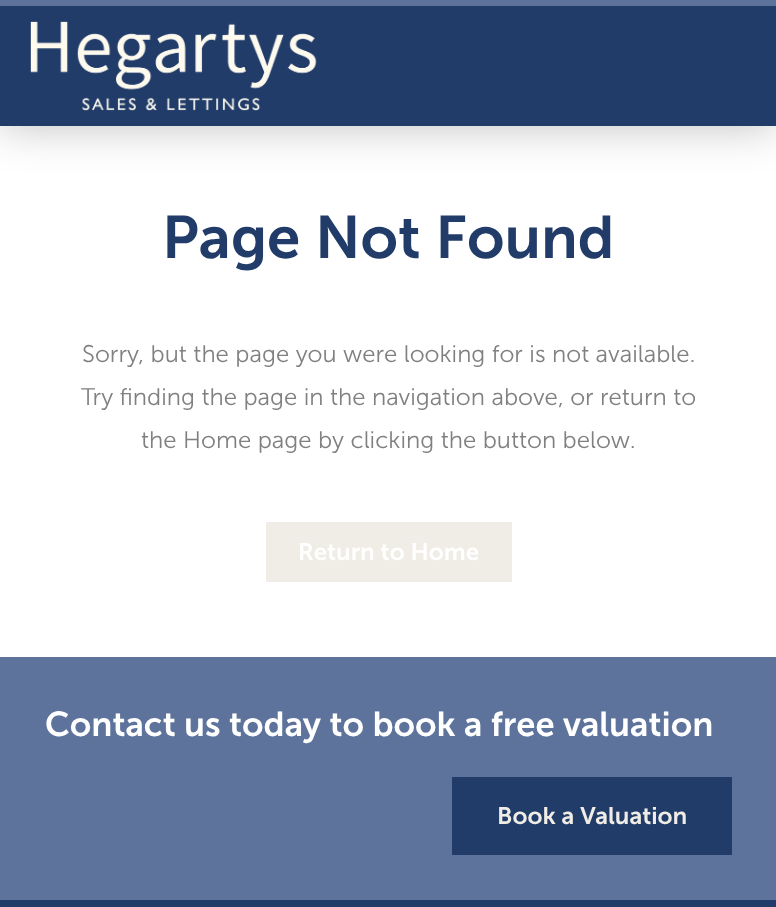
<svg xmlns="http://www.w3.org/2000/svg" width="776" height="907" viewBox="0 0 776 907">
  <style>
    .t1 { font: 600 60px 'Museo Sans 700'; fill: #223c69; }
    .t2 { font: 300 24px 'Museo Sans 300'; fill: #808083; }
    .t3 { font: 600 24px 'Museo Sans 700'; fill: #fff; }
    .t4 { font: 600 34.5px 'Museo Sans 700'; fill: #fff; }
    .t5 { font: 600 24px 'Museo Sans 700'; fill: #f0ede6; }
  </style>
  <rect width="100%" height="100%" fill="#fff"/>
  <rect x="0" y="0" width="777" height="126" fill="#00000040" filter="blur(22.5px)"/>
  <rect x="0" y="0" width="776" height="6" fill="#5d739b"/>
  <rect x="0" y="6" width="776" height="120" fill="#223c69"/>
  <image x="30" y="21" width="287" height="90" href="images/1.png"/>
  <text x="162" y="258" class="t1">Page Not Found</text>
  <text x="82" y="362" class="t2">Sorry, but the page you were looking for is not available.</text>
  <text x="81" y="405" class="t2">Try finding the page in the navigation above, or return to</text>
  <text x="141" y="448" class="t2">the Home page by clicking the button below.</text>
  <rect x="266" y="522" width="246" height="60" fill="#f0ede6"/>
  <text x="298" y="560" class="t3">Return to Home</text>
  <rect x="0" y="657" width="776" height="243" fill="#5d739b"/>
  <text x="45" y="736" class="t4">Contact us today to book a free valuation</text>
  <rect x="452" y="777" width="280" height="78" fill="#223c69"/>
  <text x="497" y="824" class="t5">Book a Valuation</text>
  <rect x="0" y="900" width="776" height="7" fill="#223c69"/>
</svg>
